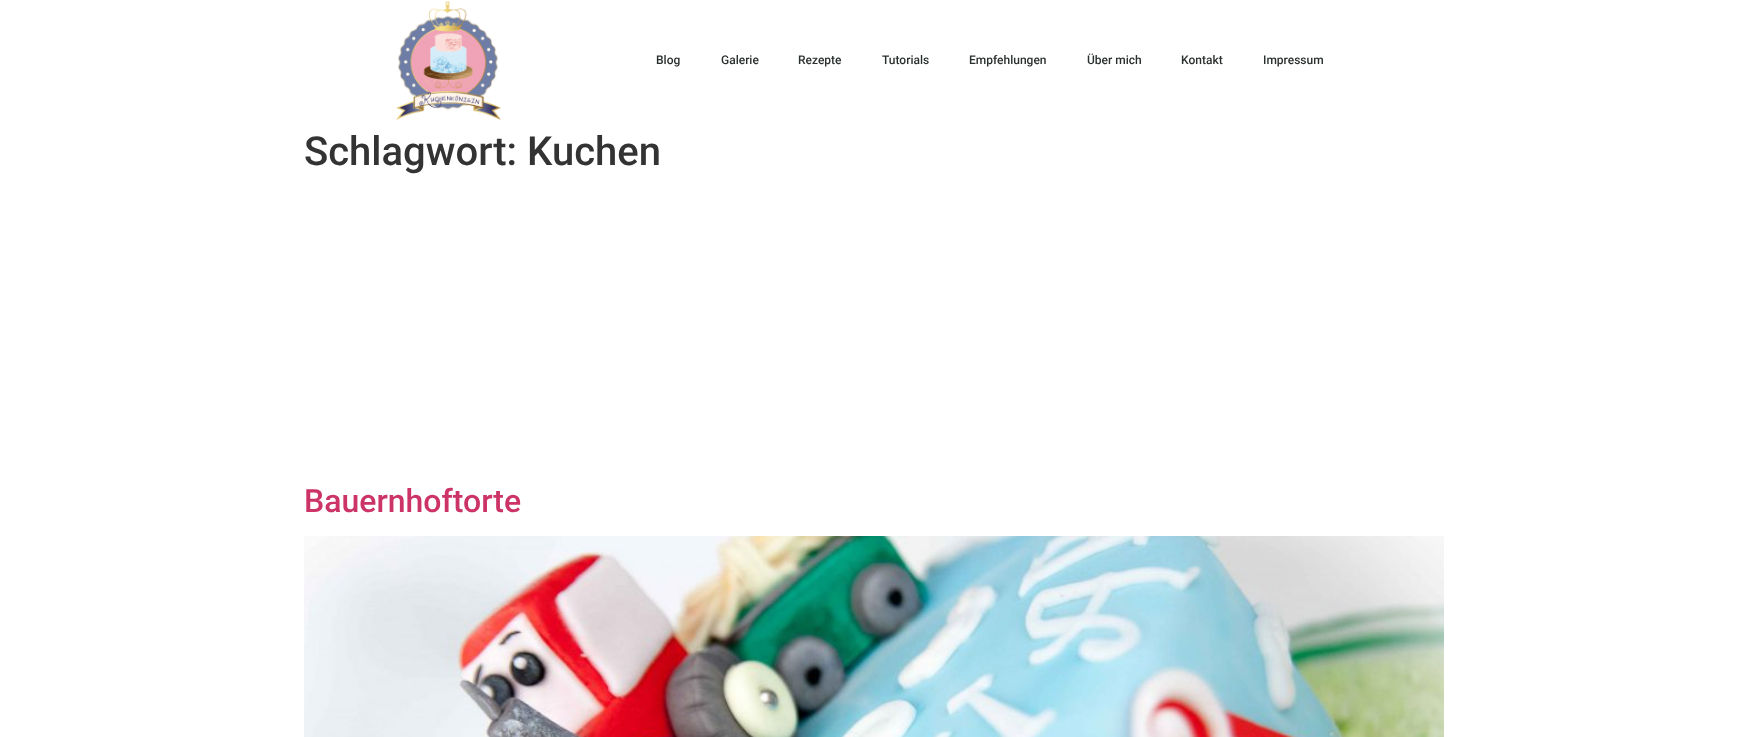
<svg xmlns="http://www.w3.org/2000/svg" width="1747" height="737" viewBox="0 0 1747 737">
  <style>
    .t1 { font: 500 12px Roboto; fill: #2a302f; }
    .t2 { font: 500 40px Roboto; fill: #333; }
    .t3 { font: 500 32px Roboto; fill: #c36; }
  </style>
  <rect width="100%" height="100%" fill="#fff"/>
  <image x="396" y="1" width="105" height="119" href="images/1.png"/>
  <text x="656" y="64" class="t1">Blog</text>
  <text x="721" y="64" class="t1">Galerie</text>
  <text x="798" y="64" class="t1">Rezepte</text>
  <text x="882" y="64" class="t1">Tutorials</text>
  <text x="969" y="64" class="t1">Empfehlungen</text>
  <text x="1087" y="64" class="t1">Über mich</text>
  <text x="1181" y="64" class="t1">Kontakt</text>
  <text x="1263" y="64" class="t1">Impressum</text>
  <text x="304" y="165" class="t2">Schlagwort: Kuchen</text>
  <text x="304" y="512" class="t3">Bauernhoftorte</text>
  <image x="304" y="536" width="1140" height="201" href="images/2.png"/>
</svg>
